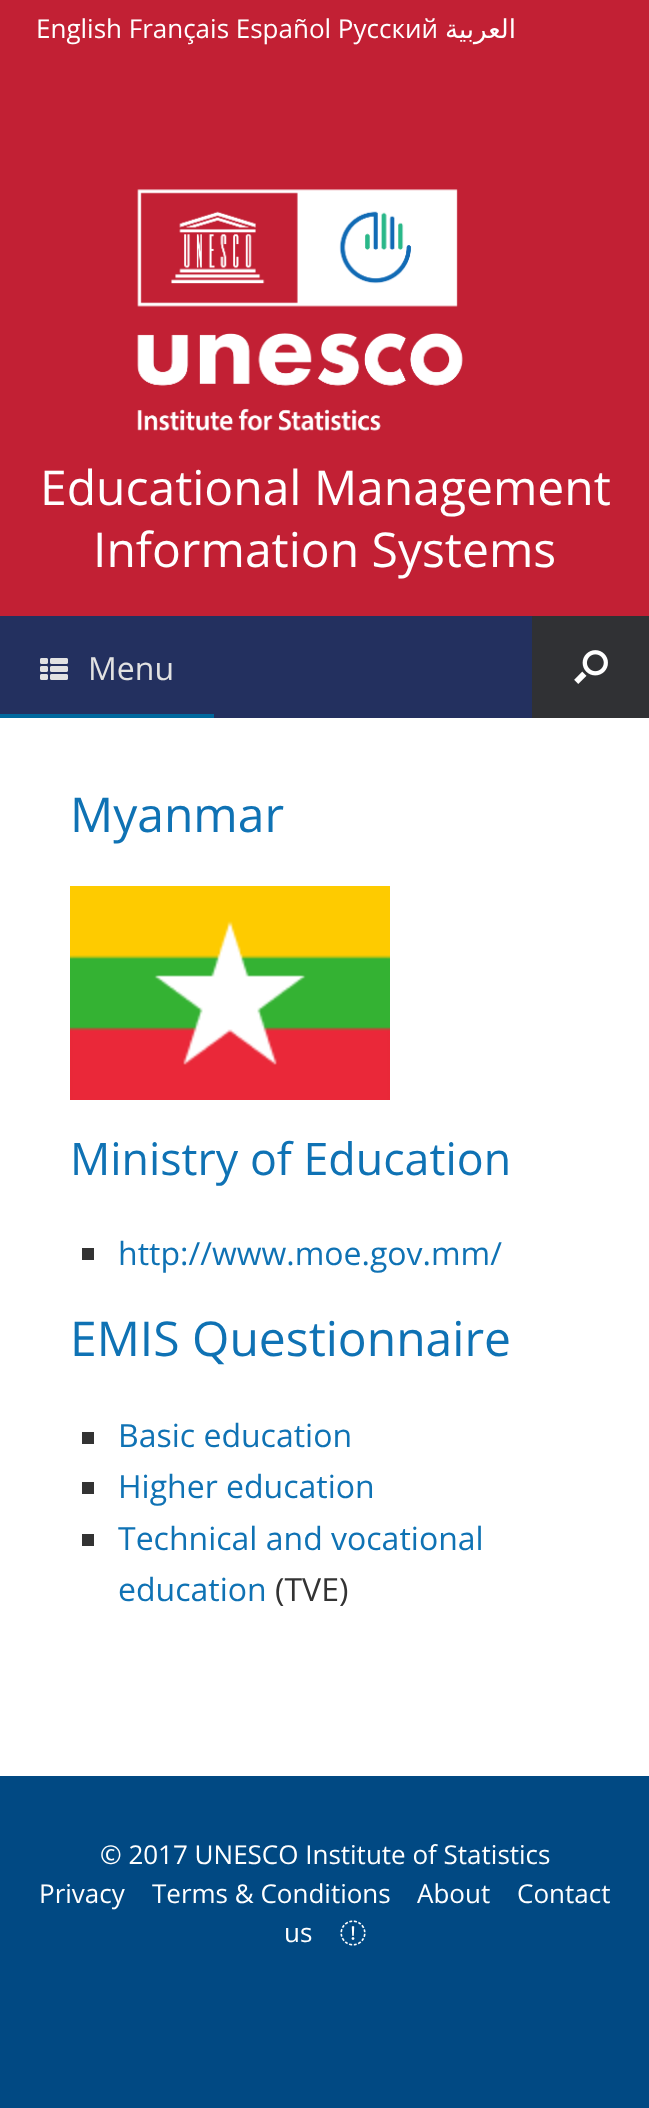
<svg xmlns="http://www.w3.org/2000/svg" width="649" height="2108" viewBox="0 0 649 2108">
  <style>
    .t1 { font: 26px Open Sans; fill: #fff; }
    .t2 { font: 26px DejaVu Sans; direction: rtl; fill: #fff; }
    .t3 { font: 48px Open Sans; fill: #fff; }
    .t4 { font: 32px Open Sans; fill: #e2e2e2; }
    .t5 { font: 48px Open Sans; fill: #0f72b4; }
    .t6 { font: 44.75px Open Sans; fill: #0f72b4; }
    .t7 { font: 32px Open Sans; fill: #0f72b4; }
    .t8 { font: 32px Open Sans; fill: #333; }
  </style>
  <rect width="100%" height="100%" fill="#014983"/>
  <rect x="0" y="0" width="649" height="616" fill="#c22034"/>
  <text x="36" y="38" class="t1">English Français Español Русский</text>
  <text x="516" y="38" class="t2">العربية</text>
  <image x="137" y="189" width="326" height="242" href="images/1.png"/>
  <text x="40" y="505" class="t3">Educational Management</text>
  <text x="93" y="567" class="t3">Information Systems</text>
  <rect x="0" y="616" width="532" height="102" fill="#23305f"/>
  <rect x="0" y="714" width="214" height="4" fill="#00689d"/>
  <image x="40" y="658" width="28" height="22" href="images/2.png"/>
  <text x="88" y="680" class="t4">Menu</text>
  <rect x="532" y="616" width="117" height="102" fill="#303134"/>
  <image x="574" y="650" width="34" height="34" href="images/3.png"/>
  <rect x="0" y="718" width="649" height="1058" fill="#fff"/>
  <text x="70" y="832" class="t5">Myanmar</text>
  <image x="70" y="886" width="320" height="214" href="images/4.png"/>
  <text x="70" y="1175" class="t6">Ministry of Education</text>
  <rect x="82" y="1248" width="12" height="12" fill="#333"/>
  <text x="118" y="1265" class="t7">http://www.moe.gov.mm/</text>
  <text x="70" y="1356" class="t5">EMIS Questionnaire</text>
  <rect x="82" y="1432" width="12" height="12" fill="#333"/>
  <text x="118" y="1447" class="t7">Basic education</text>
  <rect x="82" y="1482" width="12" height="12" fill="#333"/>
  <text x="118" y="1498" class="t7">Higher education</text>
  <rect x="82" y="1534" width="12" height="12" fill="#333"/>
  <text x="118" y="1550" class="t7">Technical and vocational</text>
  <text x="118" y="1601" class="t7">education</text>
  <text x="275" y="1601" class="t8">(TVE)</text>
  <text x="100" y="1864" class="t1">© 2017 UNESCO Institute of Statistics</text>
  <text x="39" y="1903" class="t1">Privacy</text>
  <text x="152" y="1903" class="t1">Terms &amp; Conditions</text>
  <text x="417" y="1903" class="t1">About</text>
  <text x="517" y="1903" class="t1">Contact</text>
  <text x="284" y="1942" class="t1">us</text>
  <image x="340" y="1920" width="26" height="26" href="images/5.png"/>
</svg>
